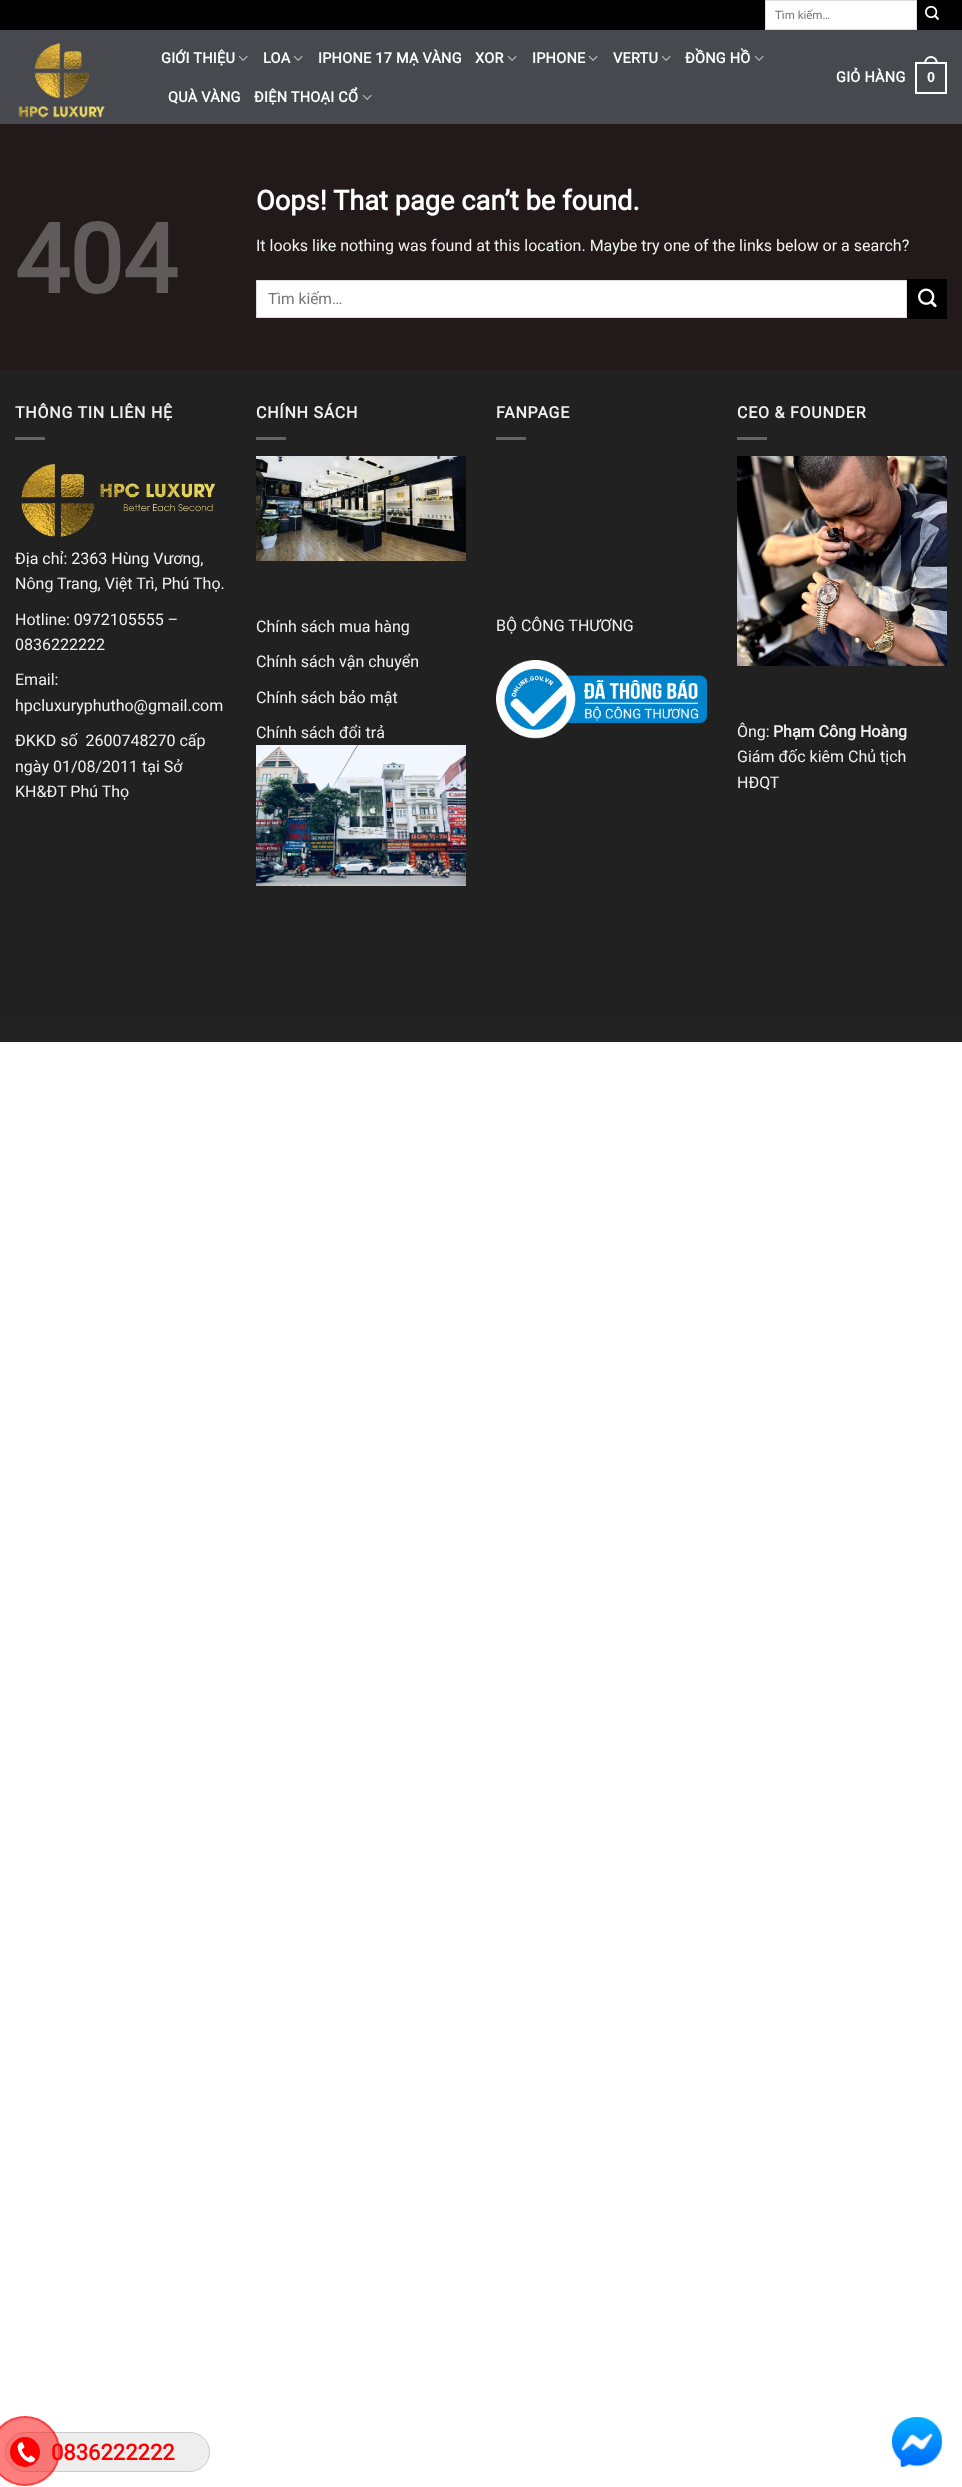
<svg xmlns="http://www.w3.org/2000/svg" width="962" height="2487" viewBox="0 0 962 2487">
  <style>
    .t1 { font: 11.5px Roboto; fill: #757575; }
    .t2 { font: bold 14.5px Roboto; letter-spacing: 0.25px; fill: #fff; }
    .t3 { font: bold 14.5px Liberation Sans; letter-spacing: 0.25px; fill: #fff; }
    .t4 { font: bold 96px Roboto; fill: #5f5a5b; }
    .t5 { font: bold 27.25px Roboto; fill: #fff; }
    .t6 { font: 16px Roboto; fill: #f1f1f1; }
    .t7 { font: 15.5px Roboto; fill: #757575; }
    .t8 { font: bold 16px Roboto; letter-spacing: 0.75px; fill: #f1f1f1; }
    .t9 { font: bold 16px Roboto; fill: #f1f1f1; }
    .t10 { font: bold 22px Roboto; fill: #f00; }
  </style>
  <rect width="100%" height="100%" fill="#fff"/>
  <rect x="0" y="124" width="962" height="245" fill="#21191a"/>
  <rect x="0" y="30" width="962" height="94" fill="#48494e"/>
  <rect x="0" y="0" width="962" height="30" fill="#000"/>
  <rect x="765.5" y="0.5" width="151" height="29" fill="#fff" stroke="#ddd"/>
  <text x="775" y="19" class="t1">Tìm kiếm…</text>
  <image x="925" y="5" width="14" height="15" href="images/1.png"/>
  <image x="18" y="43" width="87" height="75" href="images/2.png"/>
  <text x="161" y="63" class="t2">GIỚI THIỆU</text>
  <image x="238" y="55" width="10" height="6" href="images/3.png"/>
  <text x="263" y="63" class="t2">LOA</text>
  <image x="293" y="55" width="10" height="6" href="images/3.png"/>
  <text x="318" y="63" class="t2">IPHONE 17 MẠ VÀNG</text>
  <text x="475" y="63" class="t2">XOR</text>
  <image x="507" y="55" width="10" height="6" href="images/3.png"/>
  <text x="532" y="63" class="t2">IPHONE</text>
  <image x="588" y="55" width="10" height="6" href="images/3.png"/>
  <text x="613" y="63" class="t2">VERTU</text>
  <image x="661" y="55" width="10" height="6" href="images/3.png"/>
  <text x="685" y="63" class="t2">ĐỒNG HỒ</text>
  <image x="754" y="55" width="10" height="6" href="images/3.png"/>
  <text x="168" y="102" class="t2">QUÀ VÀNG</text>
  <text x="254" y="102" class="t2">ĐIỆN THOẠI CỔ</text>
  <image x="362" y="94" width="10" height="6" href="images/3.png"/>
  <text x="836" y="82" class="t2">GIỎ HÀNG</text>
  <rect x="916" y="63" width="30" height="30" fill="none" stroke="#fff" stroke-width="2"/>
  <path d="M931 56C935.5 56 938 60 938 64H924C924 60 926.5 56 931 56ZM931 58C934.5 58 936 61 936 64H926C926 61 927.5 58 931 58Z" fill="#fff" fill-rule="evenodd"/>
  <text x="927" y="82" class="t3">0</text>
  <text x="15" y="293" class="t4">404</text>
  <text x="256" y="210" class="t5">Oops! That page can’t be found.</text>
  <text x="256" y="251" class="t6">It looks like nothing was found at this location. Maybe try one of the links below or a search?</text>
  <rect x="256.5" y="280.5" width="650" height="37" fill="#fff" stroke="#ddd"/>
  <text x="268" y="304" class="t7">Tìm kiếm…</text>
  <rect x="907" y="279" width="40" height="40" fill="#000"/>
  <image x="918" y="288" width="19" height="20" href="images/4.png"/>
  <rect x="0" y="370" width="962" height="647" fill="#212121"/>
  <rect x="0" y="369" width="962" height="1" fill="#1f1f1f"/>
  <text x="15" y="418" class="t8">THÔNG TIN LIÊN HỆ</text>
  <rect x="15" y="437" width="30" height="3" fill="#646464"/>
  <image x="21" y="464" width="195" height="73" href="images/5.png"/>
  <text x="15" y="564" class="t6">Địa chỉ: 2363 Hùng Vương,</text>
  <text x="15" y="589" class="t6">Nông Trang, Việt Trì, Phú Thọ.</text>
  <text x="15" y="625" class="t6">Hotline: 0972105555 –</text>
  <text x="15" y="650" class="t6">0836222222</text>
  <text x="15" y="685" class="t6">Email:</text>
  <text x="15" y="711" class="t6">hpcluxuryphutho@gmail.com</text>
  <text x="15" y="746" class="t6" xml:space="preserve">ĐKKD số  2600748270 cấp</text>
  <text x="15" y="772" class="t6">ngày 01/08/2011 tại Sở</text>
  <text x="15" y="797" class="t6">KH&amp;ĐT Phú Thọ</text>
  <text x="256" y="418" class="t8">CHÍNH SÁCH</text>
  <rect x="256" y="437" width="30" height="3" fill="#646464"/>
  <image x="256" y="456" width="210" height="105" href="images/6.png"/>
  <text x="256" y="632" class="t6">Chính sách mua hàng</text>
  <text x="256" y="667" class="t6">Chính sách vận chuyển</text>
  <text x="256" y="703" class="t6">Chính sách bảo mật</text>
  <text x="256" y="738" class="t6">Chính sách đổi trả</text>
  <image x="256" y="745" width="210" height="141" href="images/7.png"/>
  <text x="496" y="418" class="t8">FANPAGE</text>
  <rect x="496" y="437" width="30" height="3" fill="#646464"/>
  <text x="496" y="631" class="t6">BỘ CÔNG THƯƠNG</text>
  <image x="496" y="660" width="211" height="79" href="images/8.png"/>
  <text x="737" y="418" class="t8">CEO &amp; FOUNDER</text>
  <rect x="737" y="437" width="30" height="3" fill="#646464"/>
  <image x="737" y="456" width="210" height="210" href="images/9.png"/>
  <text x="737" y="737" class="t6">Ông:</text>
  <text x="773" y="737" class="t9">Phạm Công Hoàng</text>
  <text x="737" y="762" class="t6">Giám đốc kiêm Chủ tịch</text>
  <text x="737" y="788" class="t6">HĐQT</text>
  <rect x="0" y="1017" width="962" height="25" fill="#232323"/>
  <rect x="5.5" y="2432.5" width="204" height="39" rx="19.5" fill="#eee" stroke="#ccc"/>
  <text x="51" y="2460" class="t10">0836222222</text>
  <circle cx="25" cy="2451" r="35" fill="#ff000080"/>
  <circle cx="25" cy="2451" r="34" fill="none" stroke="#ff000080" stroke-width="2"/>
  <circle cx="25" cy="2452" r="15" fill="#f00"/>
  <image x="17" y="2442" width="18" height="21" href="images/10.png"/>
  <image x="892" y="2417" width="50" height="50" href="images/11.png"/>
</svg>
